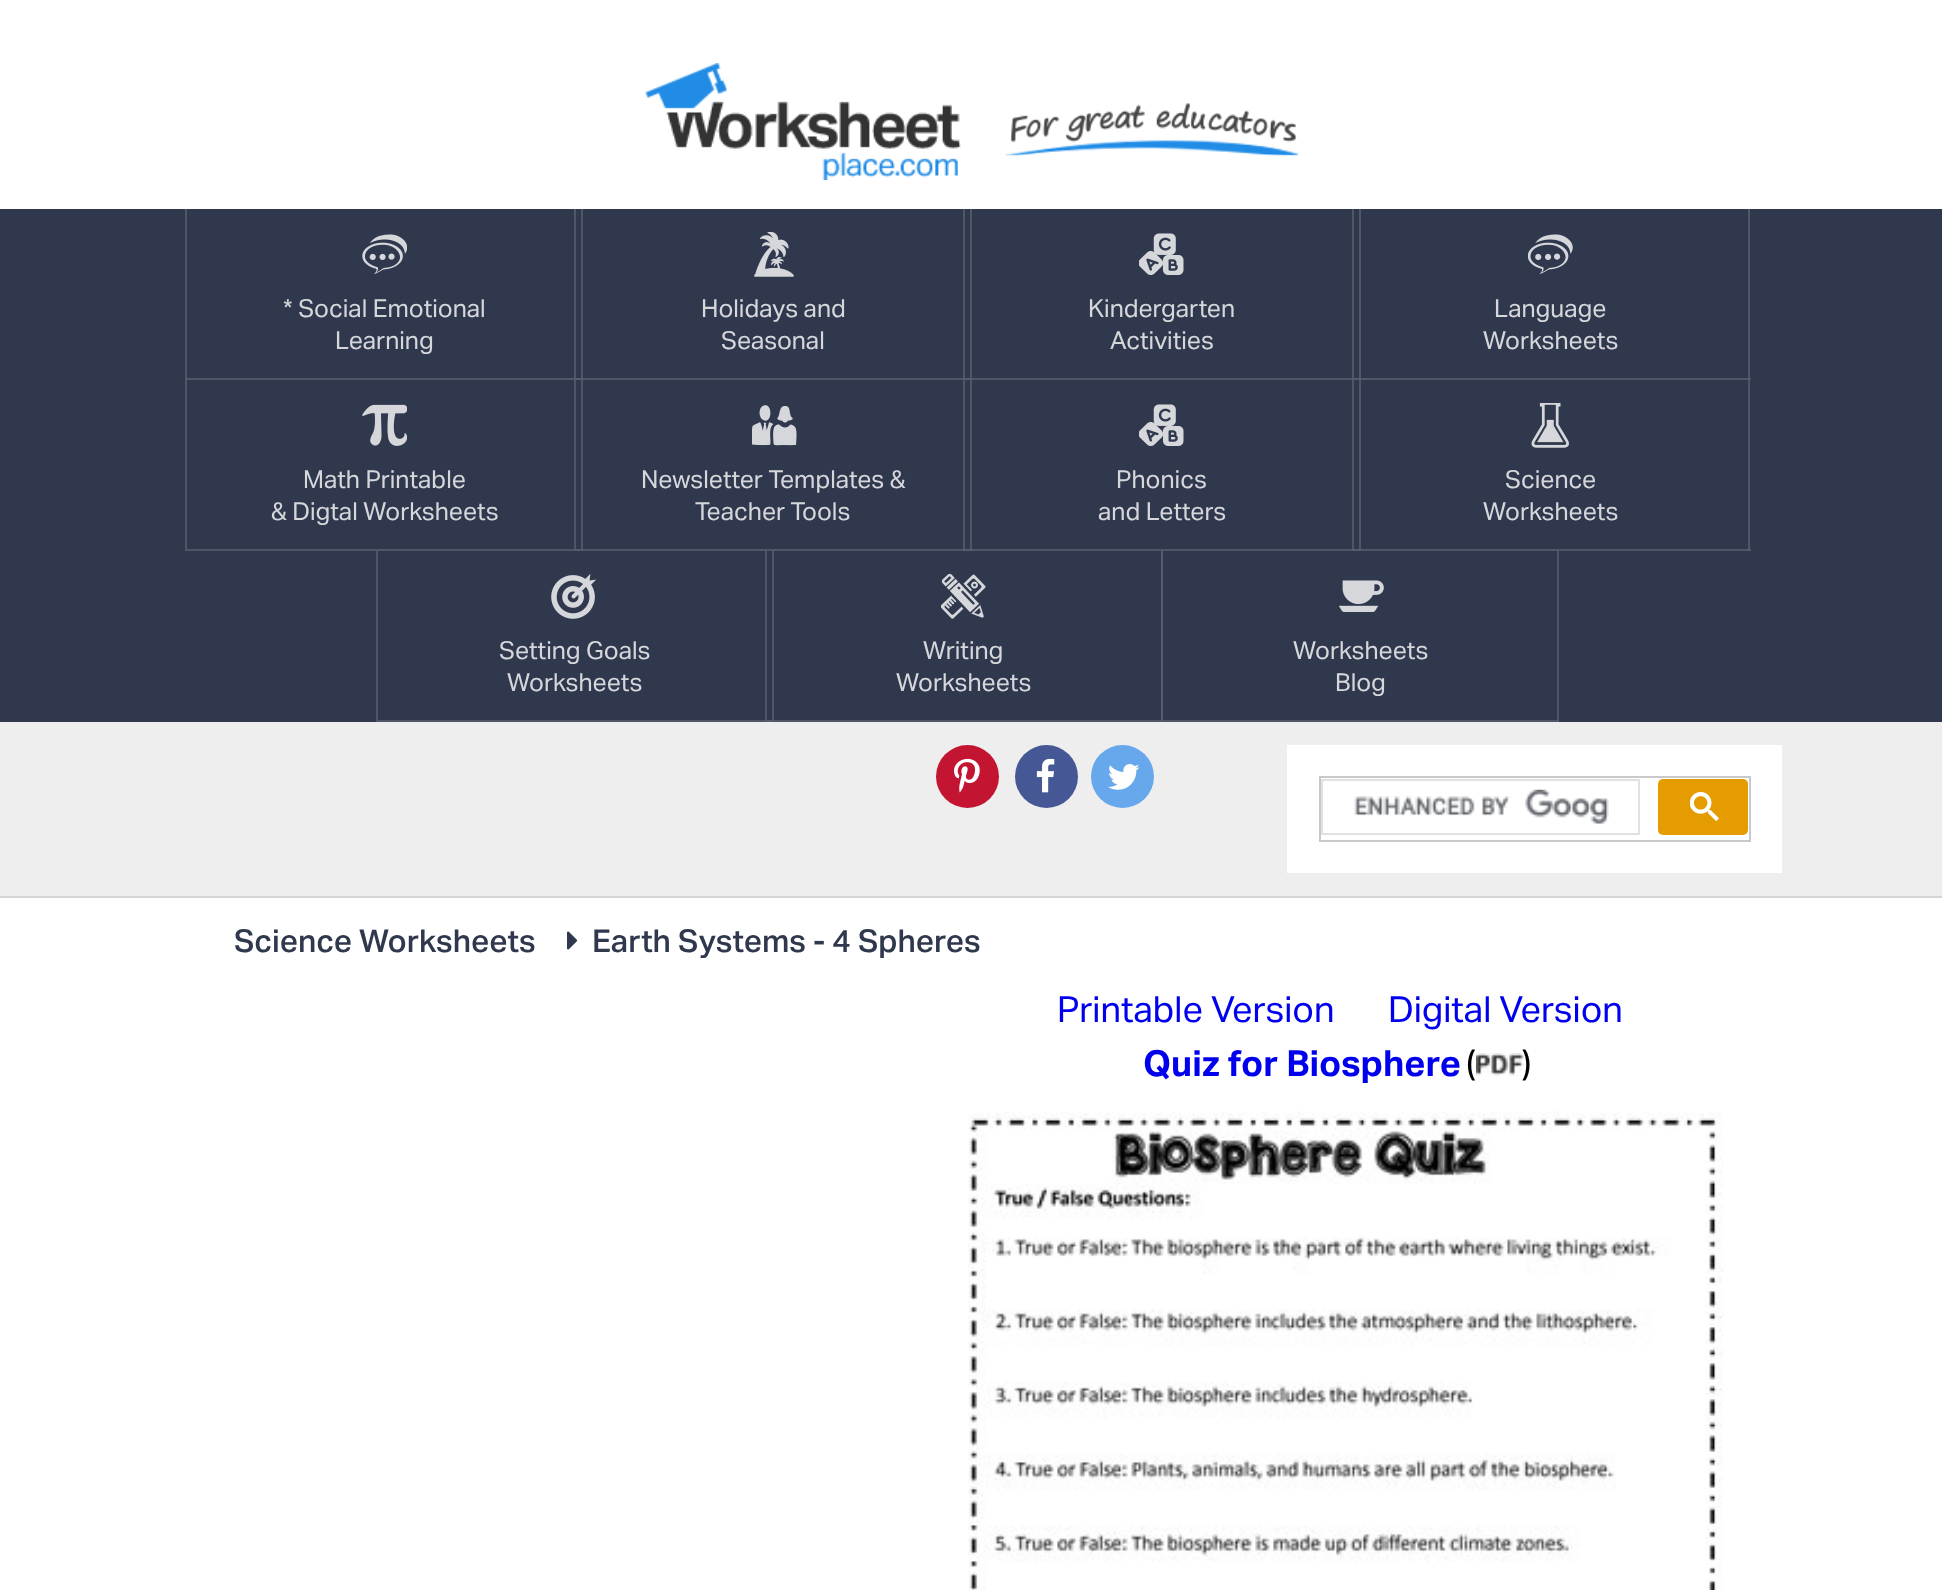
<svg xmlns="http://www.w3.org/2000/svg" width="1942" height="1590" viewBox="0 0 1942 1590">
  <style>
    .t1 { font: 24.75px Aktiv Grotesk; fill: #d6d7db; }
    .t2 { font: 500 31.5px Aktiv Grotesk; fill: #30384d; }
    .t3 { font: 36px Aktiv Grotesk; fill: #00e; }
    .t4 { font: bold 36px Aktiv Grotesk; fill: #00e; }
    .t5 { font: 36px Aktiv Grotesk; fill: #000; }
  </style>
  <rect width="100%" height="100%" fill="#fff"/>
  <image x="645" y="63" width="316" height="117" href="images/1.png"/>
  <image x="1005" y="103" width="294" height="53" href="images/2.png"/>
  <rect x="0" y="209" width="1942" height="513" fill="#30384d"/>
  <rect x="774" y="720" width="785" height="2" fill="#505668"/>
  <rect x="765" y="551" width="2" height="171" fill="#505668"/>
  <rect x="1352" y="209" width="2" height="342" fill="#505668"/>
  <rect x="1361" y="549" width="390" height="2" fill="#505668"/>
  <rect x="963" y="209" width="2" height="342" fill="#505668"/>
  <rect x="972" y="549" width="380" height="2" fill="#505668"/>
  <rect x="1352" y="549" width="9" height="2" fill="#565c6e"/>
  <rect x="574" y="209" width="2" height="342" fill="#505668"/>
  <rect x="583" y="549" width="380" height="2" fill="#505668"/>
  <rect x="963" y="549" width="9" height="2" fill="#565c6e"/>
  <rect x="1361" y="378" width="390" height="2" fill="#505668"/>
  <rect x="972" y="378" width="380" height="2" fill="#505668"/>
  <rect x="1352" y="378" width="9" height="2" fill="#565c6e"/>
  <rect x="583" y="378" width="380" height="2" fill="#505668"/>
  <rect x="963" y="378" width="9" height="2" fill="#565c6e"/>
  <rect x="581" y="209" width="2" height="342" fill="#505668"/>
  <rect x="185" y="378" width="389" height="2" fill="#505668"/>
  <rect x="574" y="378" width="9" height="2" fill="#565c6e"/>
  <rect x="185" y="209" width="2" height="171" fill="#505668"/>
  <image x="362" y="234" width="45" height="40" href="images/3.png"/>
  <text x="283" y="317" class="t1">* Social Emotional</text>
  <text x="335" y="349" class="t1">Learning</text>
  <rect x="970" y="209" width="2" height="342" fill="#505668"/>
  <rect x="970" y="378" width="2" height="2" fill="#585e6f"/>
  <image x="754" y="232" width="40" height="45" href="images/4.png"/>
  <text x="701" y="317" class="t1">Holidays and</text>
  <text x="721" y="349" class="t1">Seasonal</text>
  <rect x="1359" y="209" width="2" height="342" fill="#505668"/>
  <rect x="1359" y="378" width="2" height="2" fill="#585e6f"/>
  <image x="1139" y="233" width="45" height="42" href="images/5.png"/>
  <text x="1088" y="317" class="t1">Kindergarten</text>
  <text x="1110" y="349" class="t1">Activities</text>
  <rect x="1748" y="209" width="2" height="342" fill="#505668"/>
  <rect x="1748" y="378" width="2" height="2" fill="#565c6e"/>
  <image x="1528" y="234" width="45" height="40" href="images/6.png"/>
  <text x="1494" y="317" class="t1">Language</text>
  <text x="1483" y="349" class="t1">Worksheets</text>
  <rect x="185" y="549" width="389" height="2" fill="#505668"/>
  <rect x="574" y="549" width="9" height="2" fill="#565c6e"/>
  <rect x="185" y="380" width="2" height="171" fill="#505668"/>
  <image x="362" y="404" width="45" height="42" href="images/7.png"/>
  <text x="303" y="488" class="t1">Math Printable</text>
  <text x="271" y="520" class="t1">&amp; Digtal Worksheets</text>
  <rect x="970" y="549" width="2" height="2" fill="#585e6f"/>
  <image x="752" y="405" width="45" height="41" href="images/8.png"/>
  <text x="641" y="488" class="t1">Newsletter Templates &amp;</text>
  <text x="695" y="520" class="t1">Teacher Tools</text>
  <rect x="1359" y="549" width="2" height="2" fill="#585e6f"/>
  <image x="1139" y="404" width="45" height="42" href="images/5.png"/>
  <text x="1116" y="488" class="t1">Phonics</text>
  <text x="1098" y="520" class="t1">and Letters</text>
  <rect x="1748" y="549" width="2" height="2" fill="#565c6e"/>
  <image x="1531" y="403" width="38" height="45" href="images/9.png"/>
  <text x="1505" y="488" class="t1">Science</text>
  <text x="1483" y="520" class="t1">Worksheets</text>
  <rect x="772" y="551" width="2" height="171" fill="#505668"/>
  <rect x="376" y="720" width="389" height="2" fill="#505668"/>
  <rect x="765" y="720" width="9" height="2" fill="#565c6e"/>
  <rect x="376" y="551" width="2" height="171" fill="#505668"/>
  <image x="551" y="574" width="45" height="45" href="images/10.png"/>
  <text x="499" y="659" class="t1">Setting Goals</text>
  <text x="507" y="691" class="t1">Worksheets</text>
  <rect x="1161" y="551" width="2" height="171" fill="#565c6e"/>
  <image x="941" y="574" width="45" height="45" href="images/11.png"/>
  <text x="923" y="659" class="t1">Writing</text>
  <text x="896" y="691" class="t1">Worksheets</text>
  <rect x="1557" y="551" width="2" height="171" fill="#505668"/>
  <rect x="1557" y="720" width="2" height="2" fill="#565c6e"/>
  <image x="1339" y="580" width="45" height="32" href="images/12.png"/>
  <text x="1293" y="659" class="t1">Worksheets</text>
  <text x="1335" y="691" class="t1">Blog</text>
  <rect x="0" y="722" width="1942" height="174" fill="#eee"/>
  <rect x="0" y="896" width="1942" height="2" fill="#d5d5d5"/>
  <circle cx="967.5" cy="776.5" r="31.5" fill="#c31532"/>
  <image x="954" y="758" width="26" height="35" href="images/13.png"/>
  <circle cx="1046.5" cy="776.5" r="31.5" fill="#455795"/>
  <image x="1036" y="758" width="19" height="35" href="images/14.png"/>
  <circle cx="1122.5" cy="776.5" r="31.5" fill="#66a8eb"/>
  <image x="1108" y="764" width="32" height="26" href="images/15.png"/>
  <rect x="1287" y="745" width="495" height="128" fill="#fff"/>
  <rect x="1320" y="777" width="430" height="64" fill="none" stroke="#c9c9c9" stroke-width="2"/>
  <rect x="1322" y="780" width="317" height="54" fill="none" stroke="#dfe1e5" stroke-width="2"/>
  <image x="1354" y="789" width="255" height="35" href="images/16.png"/>
  <rect x="1658" y="779" width="90" height="56" rx="5" fill="#e49c01"/>
  <image x="1690" y="792" width="29" height="29" href="images/17.png"/>
  <text x="234" y="952" class="t2">Science Worksheets</text>
  <image x="567" y="931" width="11" height="19" href="images/18.png"/>
  <text x="592" y="952" class="t2">Earth Systems - 4 Spheres</text>
  <text x="1057" y="1022" class="t3">Printable Version</text>
  <text x="1388" y="1022" class="t3">Digital Version</text>
  <text x="1143" y="1076" class="t4">Quiz for Biosphere</text>
  <text x="1466" y="1076" class="t5">(</text>
  <image x="1476" y="1053" width="48" height="23" href="images/19.png"/>
  <text x="1522" y="1076" class="t5">)</text>
  <image x="967" y="1111" width="757" height="479" href="images/20.png"/>
</svg>
